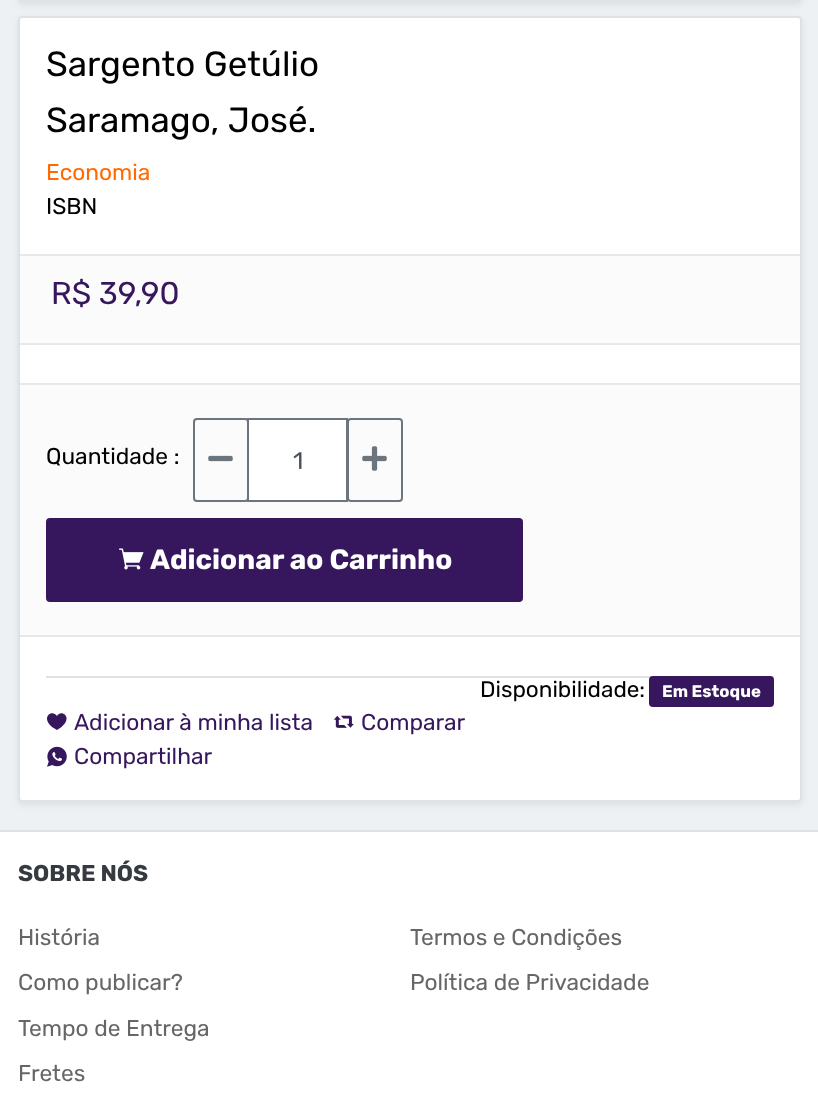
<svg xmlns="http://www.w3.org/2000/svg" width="818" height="1104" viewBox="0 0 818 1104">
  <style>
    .t1 { font: 35px Rubik; fill: #000; }
    .t2 { font: 22.75px Rubik; fill: #ff6a00; }
    .t3 { font: 22.75px Rubik; fill: #000; }
    .t4 { font: 31.5px Rubik; fill: #36175e; }
    .t5 { font: 24px Rubik; fill: #495057; }
    .t6 { font: bold 28px Rubik; fill: #fff; }
    .t7 { font: 22.5px Rubik; fill: #000; }
    .t8 { font: bold 16.75px Rubik; fill: #fff; }
    .t9 { font: 22.75px Rubik; fill: #36175e; }
    .t10 { font: bold 22.75px Rubik; fill: #343a40; }
    .t11 { font: 22.75px Rubik; fill: #666; }
  </style>
  <rect width="100%" height="100%" fill="#fff"/>
  <rect x="0" y="0" width="818" height="830" fill="#edf1f4"/>
  <rect x="18" y="-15" width="784" height="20" rx="4" fill="#00000012" filter="blur(3.5px)"/>
  <rect x="19" y="-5" width="782" height="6" rx="3" fill="none" stroke="#dee2e6" stroke-width="2"/>
  <rect x="18" y="19" width="784" height="786" rx="4" fill="#00000012" filter="blur(3.5px)"/>
  <rect x="19" y="17" width="782" height="784" rx="3" fill="#fff" stroke="#dee2e6" stroke-width="2"/>
  <text x="46" y="76" class="t1">Sargento Getúlio</text>
  <text x="46" y="132" class="t1">Saramago, José.</text>
  <text x="46" y="180" class="t2">Economia</text>
  <text x="46" y="214" class="t3">ISBN</text>
  <rect x="20" y="254" width="780" height="91" fill="#cfcfcf14"/>
  <rect x="19" y="254" width="781" height="2" fill="#cccccc66"/>
  <rect x="19" y="343" width="781" height="2" fill="#cccccc66"/>
  <text x="51" y="304" class="t4">R$ 39,90</text>
  <rect x="20" y="383" width="780" height="254" fill="#cfcfcf14"/>
  <rect x="19" y="383" width="781" height="2" fill="#cccccc66"/>
  <rect x="19" y="635" width="781" height="2" fill="#cccccc66"/>
  <text x="46" y="464" class="t3">Quantidade :</text>
  <rect x="194" y="419" width="54" height="82" rx="3" fill="none" stroke="#6c757d" stroke-width="2"/>
  <image x="208" y="455" width="25" height="7" href="images/1.png"/>
  <rect x="348" y="419" width="54" height="82" rx="3" fill="none" stroke="#6c757d" stroke-width="2"/>
  <rect x="248" y="419" width="99" height="82" fill="#fff" stroke="#6c757d" stroke-width="2"/>
  <text x="293" y="469" class="t5">1</text>
  <image x="362" y="446" width="25" height="25" href="images/2.png"/>
  <rect x="47" y="519" width="475" height="82" rx="3" fill="#36175e" stroke="#36175e" stroke-width="2"/>
  <image x="119" y="548" width="25" height="22" href="images/3.png"/>
  <text x="150" y="569" class="t6">Adicionar ao Carrinho</text>
  <rect x="46" y="676" width="728" height="2" fill="#dee2e6"/>
  <text x="480" y="697" class="t7">Disponibilidade:</text>
  <rect x="649" y="676" width="125" height="31" rx="4" fill="#36175e"/>
  <text x="662" y="697" class="t8">Em Estoque</text>
  <text x="74" y="730" class="t9">Adicionar à minha lista</text>
  <path d="M57 716C61 709 73.5 717 61.5 727L57 730L52 727C40.5 717 52 709 57 716Z" fill="#36175e"/>
  <image x="334" y="715" width="20" height="13" href="images/4.png"/>
  <text x="361" y="730" class="t9">Comparar</text>
  <image x="47" y="746" width="20" height="21" href="images/5.png"/>
  <text x="74" y="764" class="t9">Compartilhar</text>
  <rect x="0" y="830" width="818" height="2" fill="#dee2e6"/>
  <text x="18" y="881" class="t10">SOBRE NÓS</text>
  <text x="18" y="945" class="t11">História</text>
  <text x="18" y="990" class="t11">Como publicar?</text>
  <text x="18" y="1036" class="t11">Tempo de Entrega</text>
  <text x="18" y="1081" class="t11">Fretes</text>
  <text x="410" y="945" class="t11">Termos e Condições</text>
  <text x="410" y="990" class="t11">Política de Privacidade</text>
</svg>
